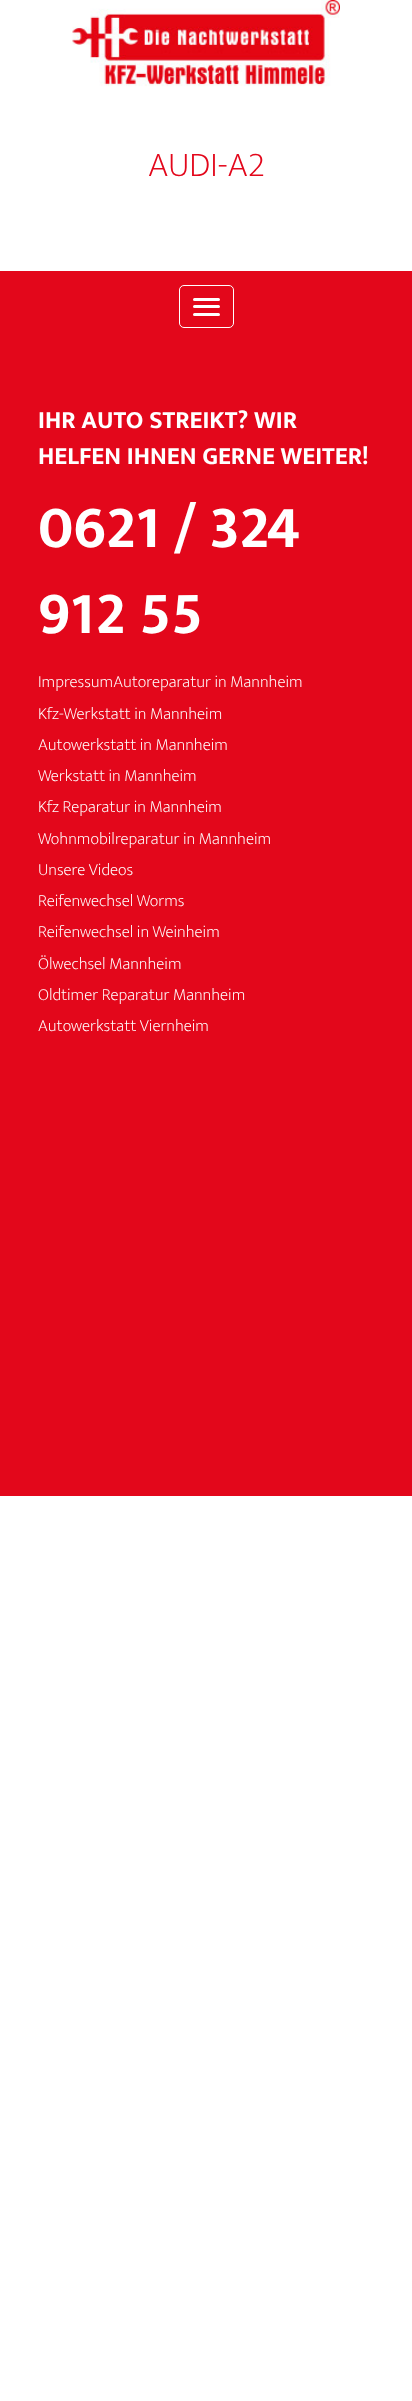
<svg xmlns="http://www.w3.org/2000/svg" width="412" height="2401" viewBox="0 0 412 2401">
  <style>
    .t1 { font: 300 35px Ek Mukta; fill: #e3071b; }
    .t2 { font: bold 25px Ek Mukta; fill: #fff; }
    .t3 { font: bold 60px Ek Mukta; fill: #fff; }
    .t4 { font: 300 16.9px Ek Mukta; fill: #fff; }
  </style>
  <rect width="100%" height="100%" fill="#fff"/>
  <image x="72" y="0" width="268" height="87" href="images/1.png"/>
  <text x="148" y="176" class="t1">AUDI-A2</text>
  <rect x="0" y="271" width="412" height="1225" fill="#e3071b"/>
  <rect x="179.5" y="285.5" width="54" height="42" rx="4.5" fill="none" stroke="#fff"/>
  <rect x="193" y="298" width="27" height="3" rx="1.5" fill="#fff"/>
  <rect x="193" y="305" width="27" height="3" rx="1.5" fill="#fff"/>
  <rect x="193" y="313" width="27" height="3" rx="1.5" fill="#fff"/>
  <text x="38" y="428" class="t2">IHR AUTO STREIKT? WIR</text>
  <text x="38" y="464" class="t2">HELFEN IHNEN GERNE WEITER!</text>
  <text x="38" y="547" class="t3">0621 / 324</text>
  <text x="38" y="633" class="t3">912 55</text>
  <text x="38" y="687" class="t4">ImpressumAutoreparatur in Mannheim</text>
  <text x="38" y="719" class="t4">Kfz-Werkstatt in Mannheim</text>
  <text x="38" y="750" class="t4">Autowerkstatt in Mannheim</text>
  <text x="38" y="781" class="t4">Werkstatt in Mannheim</text>
  <text x="38" y="812" class="t4">Kfz Reparatur in Mannheim</text>
  <text x="38" y="844" class="t4">Wohnmobilreparatur in Mannheim</text>
  <text x="38" y="875" class="t4">Unsere Videos</text>
  <text x="38" y="906" class="t4">Reifenwechsel Worms</text>
  <text x="38" y="937" class="t4">Reifenwechsel in Weinheim</text>
  <text x="38" y="969" class="t4">Ölwechsel Mannheim</text>
  <text x="38" y="1000" class="t4">Oldtimer Reparatur Mannheim</text>
  <text x="38" y="1031" class="t4">Autowerkstatt Viernheim</text>
</svg>
